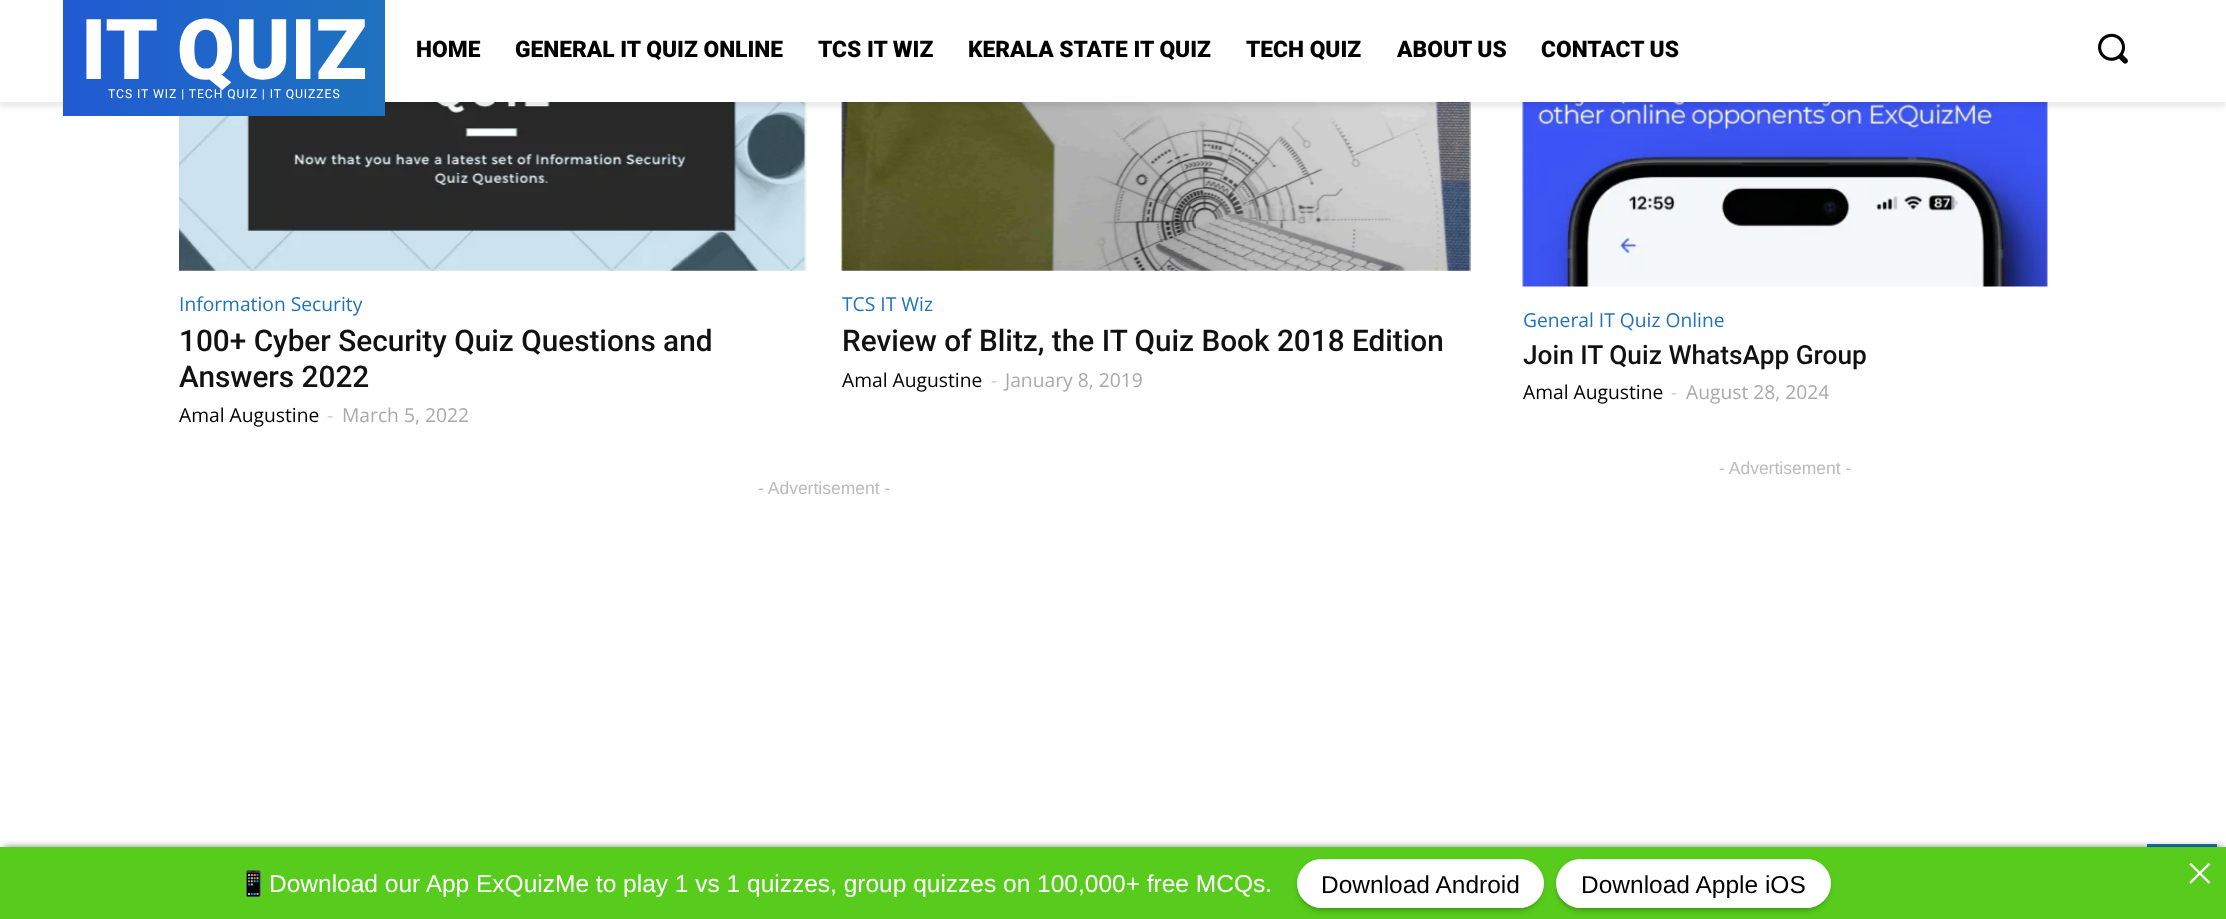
<svg xmlns="http://www.w3.org/2000/svg" width="2226" height="919" viewBox="0 0 2226 919">
  <style>
    .t1 { font: 900 84px Roboto; fill: #fff; }
    .t2 { font: 12.25px Roboto; letter-spacing: 0.9px; fill: #fff; }
    .t3 { font: 900 22.75px Roboto; fill: #000; }
    .t4 { font: 19.25px Open Sans; fill: #1e73be; }
    .t5 { font: 500 29.75px Roboto; fill: #111; }
    .t6 { font: 19.25px Open Sans; fill: #000; }
    .t7 { font: 19.25px Open Sans; fill: #ccc; }
    .t8 { font: 19.25px Open Sans; fill: #aaa; }
    .t9 { font: 17.5px Liberation Sans; fill: #bbb; }
    .t10 { font: 500 26.25px Roboto; fill: #111; }
    .t11 { font: 24.5px Noto Color Emoji; fill: #fff; }
    .t12 { font: 24.5px Liberation Sans; fill: #fff; }
    .t13 { font: 24.5px Liberation Sans; fill: #000; }
  </style>
  <defs>
    <clipPath id="clip1"><path d="M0 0H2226V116H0ZM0 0H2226V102H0Z" clip-rule="evenodd"/></clipPath>
    <linearGradient id="g1" gradientUnits="userSpaceOnUse" x1="385" y1="58" x2="63" y2="58"><stop offset="0" stop-color="#1e73be"/><stop offset="1" stop-color="#215ad3"/></linearGradient>
  </defs>
  <rect width="100%" height="100%" fill="#fff"/>
  <image x="179" y="102" width="628" height="169" href="images/2.png"/>
  <image x="841" y="102" width="630" height="169" href="images/3.png"/>
  <image x="1522" y="102" width="526" height="185" href="images/4.png"/>
  <g clip-path="url(#clip1)">
    <rect x="0" y="5" width="2226" height="102" fill="#00000014" filter="blur(2.5px)"/>
  </g>
  <rect x="63" y="0" width="322" height="116" fill="url(#g1)"/>
  <text x="81" y="79" class="t1">IT QUIZ</text>
  <text x="108" y="98" class="t2">TCS IT WIZ | TECH QUIZ | IT QUIZZES</text>
  <text x="416" y="57" class="t3">HOME</text>
  <text x="515" y="57" class="t3">GENERAL IT QUIZ ONLINE</text>
  <text x="818" y="57" class="t3">TCS IT WIZ</text>
  <text x="968" y="57" class="t3">KERALA STATE IT QUIZ</text>
  <text x="1246" y="57" class="t3">TECH QUIZ</text>
  <text x="1397" y="57" class="t3">ABOUT US</text>
  <text x="1541" y="57" class="t3">CONTACT US</text>
  <image x="2098" y="33" width="30" height="31" href="images/1.png"/>
  <text x="179" y="311" class="t4">Information Security</text>
  <text x="179" y="351" class="t5">100+ Cyber Security Quiz Questions and</text>
  <text x="179" y="387" class="t5">Answers 2022</text>
  <text x="179" y="422" class="t6">Amal Augustine</text>
  <text x="327" y="422" class="t7">-</text>
  <text x="342" y="422" class="t8">March 5, 2022</text>
  <text x="842" y="311" class="t4">TCS IT Wiz</text>
  <text x="842" y="351" class="t5">Review of Blitz, the IT Quiz Book 2018 Edition</text>
  <text x="842" y="387" class="t6">Amal Augustine</text>
  <text x="991" y="387" class="t7">-</text>
  <text x="1005" y="387" class="t8">January 8, 2019</text>
  <text x="758" y="494" class="t9">- Advertisement -</text>
  <text x="1523" y="327" class="t4">General IT Quiz Online</text>
  <text x="1523" y="364" class="t10">Join IT Quiz WhatsApp Group</text>
  <text x="1523" y="399" class="t6">Amal Augustine</text>
  <text x="1671" y="399" class="t7">-</text>
  <text x="1686" y="399" class="t8">August 28, 2024</text>
  <text x="1719" y="474" class="t9">- Advertisement -</text>
  <rect x="2147" y="844" width="70" height="3" fill="#1e73be"/>
  <rect x="4" y="847" width="2219" height="67" fill="#00000080" filter="blur(3.5px)"/>
  <rect x="0" y="847" width="2226" height="72" fill="#57cc1c"/>
  <text x="238" y="892" class="t11">📱</text>
  <text x="269" y="892" class="t12">Download our App ExQuizMe to play 1 vs 1 quizzes, group quizzes on 100,000+ free MCQs.</text>
  <rect x="1300" y="866" width="240" height="42" rx="21" fill="#00000080" filter="blur(3.5px)"/>
  <rect x="1297" y="859" width="247" height="49" rx="24.5" fill="#fff"/>
  <text x="1321" y="893" class="t13">Download Android</text>
  <rect x="1559" y="866" width="268" height="42" rx="21" fill="#00000080" filter="blur(3.5px)"/>
  <rect x="1556" y="859" width="275" height="49" rx="24.5" fill="#fff"/>
  <text x="1581" y="893" class="t13">Download Apple iOS</text>
  <image x="2189" y="862" width="22" height="22" href="images/5.png"/>
</svg>
